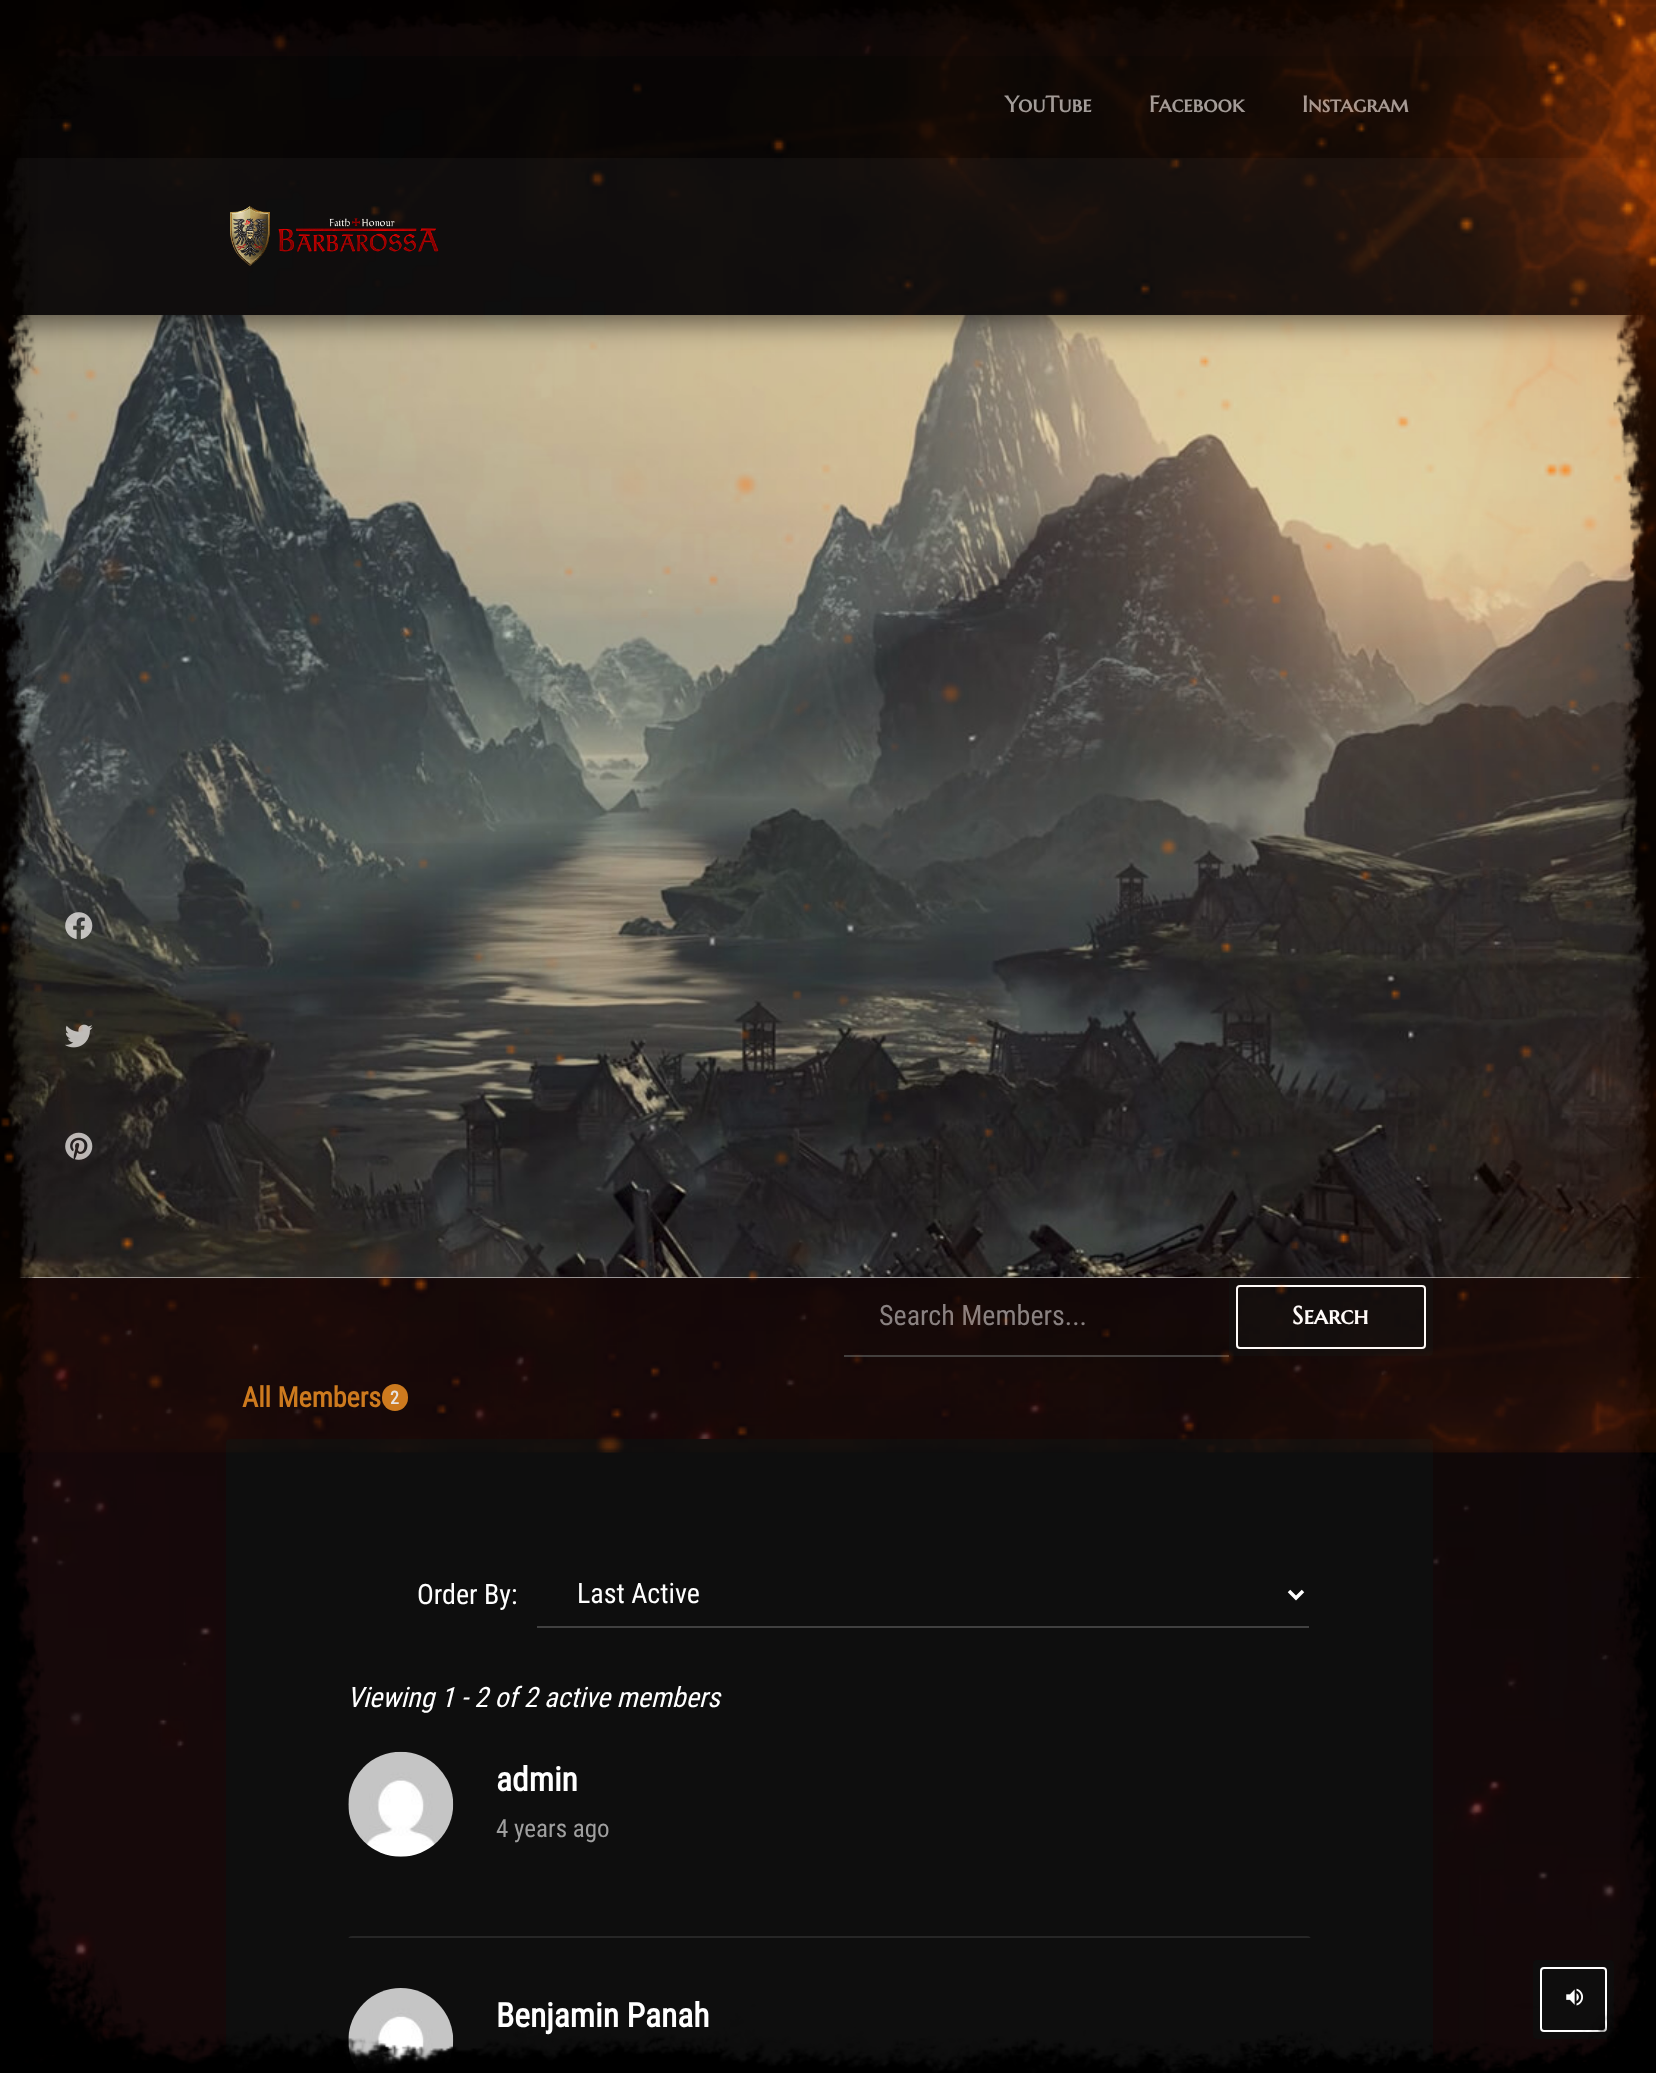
<svg xmlns="http://www.w3.org/2000/svg" width="1656" height="2073" viewBox="0 0 1656 2073">
  <style>
    .t1 { font: bold 22.5px Marcellus SC; fill: #9f9f9f; }
    .t2 { font: bold 33.5px Roboto Condensed; fill: #fff; }
    .t3 { font: 28px Roboto Condensed; fill: #888384; }
    .t4 { font: bold 25px Marcellus SC; fill: #fff; }
    .t5 { font: bold 28px Roboto Condensed; fill: #cc7b1f; }
    .t6 { font: bold 18px Roboto Condensed; fill: #e7e6e6; }
    .t7 { font: 28px Roboto Condensed; fill: #fff; }
    .t8 { font: italic 28px Roboto Condensed; fill: #fff; }
    .t9 { font: 25px Roboto Condensed; fill: #9f9f9f; }
  </style>
  <defs>
    <clipPath id="clip1"><rect x="348" y="1936" width="963" height="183" rx="4"/></clipPath>
  </defs>
  <rect width="100%" height="100%" fill="#0e0e0e"/>
  <image x="1" y="0" width="1655" height="2073" href="images/6.png"/>
  <rect x="18" y="1277" width="1636" height="1" fill="#c5c5c5"/>
  <image x="0" y="315" width="1656" height="963" href="images/11.png"/>
  <rect x="0" y="166" width="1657" height="158" fill="#00000080" filter="blur(13px)"/>
  <rect x="0" y="56" width="1590" height="102" fill="#060606"/>
  <rect x="0" y="158" width="1656" height="157" fill="#0e0e0e"/>
  <rect x="-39" y="-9" width="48" height="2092" fill="#00000080" filter="blur(13px)"/>
  <text x="1005" y="112" class="t1">YouTube</text>
  <text x="1149" y="112" class="t1">Facebook</text>
  <text x="1302" y="112" class="t1">Instagram</text>
  <rect x="1533" y="1960" width="81" height="79" rx="4" fill="#0e0d0d"/>
  <rect x="1649" y="-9" width="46" height="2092" fill="#00000080" filter="blur(13px)"/>
  <image x="0" y="0" width="1656" height="119" href="images/1.png"/>
  <image x="1566" y="1988" width="17" height="18" href="images/14.png"/>
  <rect x="1541" y="1968" width="65" height="63" rx="3" fill="none" stroke="#fff" stroke-width="2"/>
  <image x="1537" y="12" width="119" height="2061" href="images/3.png"/>
  <rect x="226" y="1439" width="1207" height="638" rx="4" fill="#0e0e0e"/>
  <image x="348" y="1988" width="106" height="83" href="images/13.png"/>
  <text x="496" y="2027" class="t2">Benjamin Panah</text>
  <image x="0" y="1938" width="1641" height="135" href="images/4.png"/>
  <image x="65" y="912" width="28" height="28" href="images/8.png"/>
  <image x="65" y="1024" width="28" height="24" href="images/9.png"/>
  <image x="65" y="1132" width="28" height="28" href="images/10.png"/>
  <image x="0" y="116" width="122" height="1939" href="images/2.png"/>
  <image x="230" y="206" width="209" height="60" href="images/7.png"/>
  <rect x="844" y="1355" width="385" height="2" fill="#404040"/>
  <text x="879" y="1325" class="t3">Search Members...</text>
  <rect x="1229" y="1278" width="204" height="78" rx="4" fill="#0e0d0e"/>
  <rect x="1237" y="1286" width="188" height="62" rx="3" fill="none" stroke="#fff" stroke-width="2"/>
  <text x="1292" y="1324" class="t4">Search</text>
  <text x="242" y="1407" class="t5">All Members</text>
  <rect x="382" y="1384" width="26" height="27" rx="13" fill="#cc7b1f"/>
  <text x="390" y="1404" class="t6">2</text>
  <image x="0" y="0" width="1656" height="1453" href="images/5.png"/>
  <text x="417" y="1604" class="t7">Order By:</text>
  <rect x="537" y="1626" width="772" height="2" fill="#404040"/>
  <path d="M1289 1591L1296 1598L1303 1591" fill="none" stroke="#fff" stroke-width="3.5"/>
  <text x="577" y="1603" class="t7">Last Active</text>
  <text x="347" y="1707" class="t8">Viewing 1 - 2 of 2 active members</text>
  <image x="348" y="1751" width="106" height="106" href="images/12.png"/>
  <text x="496" y="1791" class="t2">admin</text>
  <text x="496" y="1837" class="t9">4 years ago</text>
  <g clip-path="url(#clip1)">
    <rect x="348" y="1936" width="963" height="2" fill="#262626"/>
  </g>
</svg>
